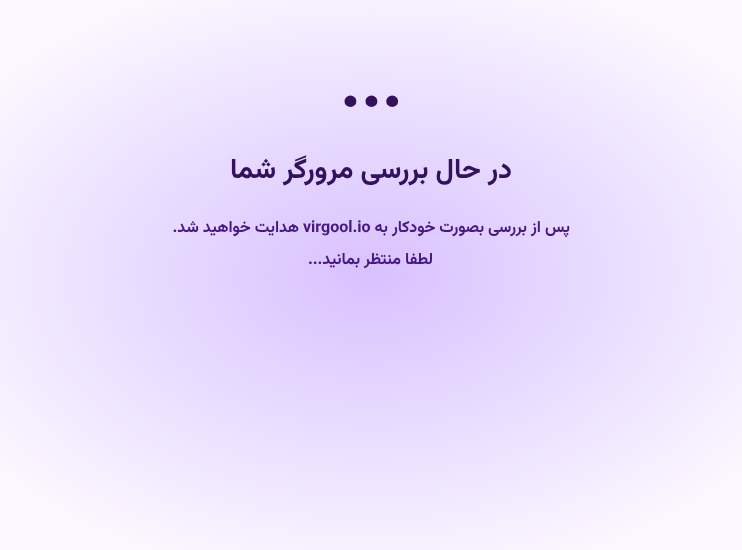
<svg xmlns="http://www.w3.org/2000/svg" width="742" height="550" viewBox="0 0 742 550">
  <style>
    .t1 { font: bold 70px Vazirmatn; fill: #33115d; }
    .t2 { font: bold 28px Vazirmatn; direction: rtl; fill: #33115d; }
    .t3 { font: bold 16px Vazirmatn; direction: rtl; fill: #471882; }
    .t4 { font: bold 16px Vazirmatn; fill: #471882; }
  </style>
  <defs>
    <radialGradient id="g1" gradientUnits="userSpaceOnUse" cx="0" cy="0" r="1" gradientTransform="matrix(473 0 0 309 371 275)"><stop offset="0" stop-color="#d8c1ff"/><stop offset="1" stop-color="#faf7ff"/></radialGradient>
  </defs>
  <rect width="100%" height="100%" fill="#fff"/>
  <rect x="0" y="0" width="742" height="550" fill="url(#g1)"/>
  <text x="340" y="107" class="t1">...</text>
  <text x="512" y="178" class="t2">در حال بررسی مرورگر شما</text>
  <text x="570" y="232" class="t3">پس از بررسی بصورت خودکار به</text>
  <text x="303" y="232" class="t4">virgool.io</text>
  <text x="299" y="232" class="t3">هدایت خواهید شد.</text>
  <text x="433" y="264" class="t3">لطفا منتظر بمانید...</text>
</svg>
